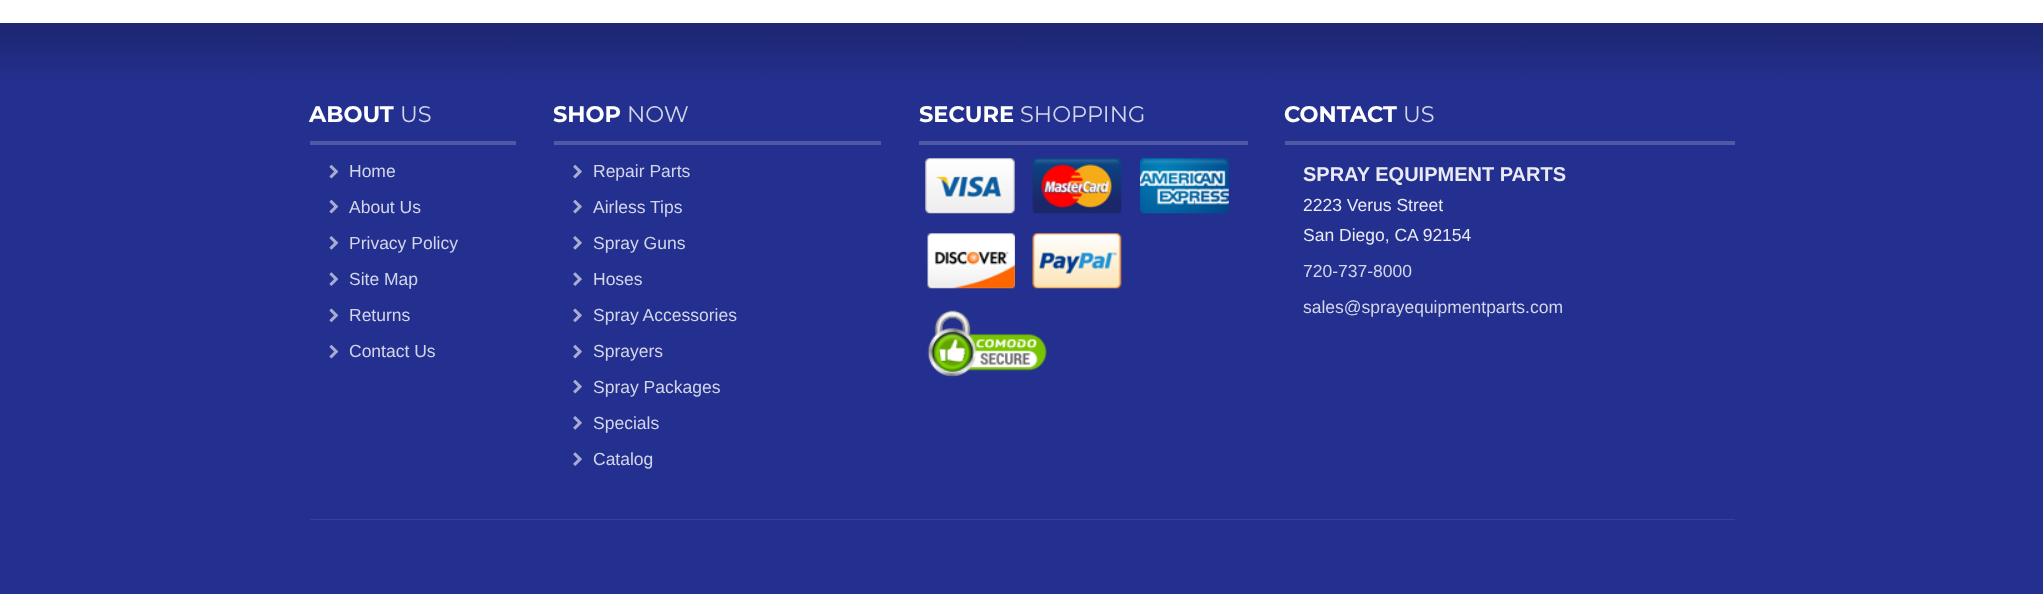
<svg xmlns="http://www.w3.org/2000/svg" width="2043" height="594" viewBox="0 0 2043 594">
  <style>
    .t1 { font: bold 22.5px Montserrat; fill: #fff; }
    .t2 { font: 22.5px Montserrat; fill: #d3d6e9; }
    .t3 { font: 17.5px Arimo; fill: #d3d6e9; }
    .t4 { font: bold 20px Arimo; fill: #e9eaf4; }
    .t5 { font: 17.5px Arimo; fill: #e9eaf4; }
  </style>
  <defs>
    <linearGradient id="g1" gradientUnits="userSpaceOnUse" x1="1022" y1="22" x2="1022" y2="85"><stop offset="0" stop-color="#1c2671"/><stop offset="1" stop-color="#24308f"/></linearGradient>
  </defs>
  <rect width="100%" height="100%" fill="#fff"/>
  <rect x="0" y="85" width="2043" height="509" fill="#24308f"/>
  <rect x="0" y="23" width="2043" height="62" fill="url(#g1)"/>
  <rect x="310" y="141" width="206" height="4" fill="#5059a5"/>
  <text x="309" y="122" class="t1">ABOUT</text>
  <text x="400" y="122" class="t2">US</text>
  <image x="329" y="164" width="10" height="15" href="images/1.png"/>
  <text x="349" y="177" class="t3">Home</text>
  <image x="329" y="199" width="10" height="15" href="images/1.png"/>
  <text x="349" y="213" class="t3">About Us</text>
  <image x="329" y="236" width="10" height="14" href="images/2.png"/>
  <text x="349" y="249" class="t3">Privacy Policy</text>
  <image x="329" y="272" width="10" height="14" href="images/3.png"/>
  <text x="349" y="285" class="t3">Site Map</text>
  <image x="329" y="308" width="10" height="14" href="images/4.png"/>
  <text x="349" y="321" class="t3">Returns</text>
  <image x="329" y="344" width="10" height="15" href="images/1.png"/>
  <text x="349" y="357" class="t3">Contact Us</text>
  <rect x="554" y="141" width="327" height="4" fill="#5059a5"/>
  <text x="553" y="122" class="t1">SHOP</text>
  <text x="627" y="122" class="t2">NOW</text>
  <image x="573" y="164" width="9" height="15" href="images/5.png"/>
  <text x="593" y="177" class="t3">Repair Parts</text>
  <image x="573" y="199" width="9" height="15" href="images/5.png"/>
  <text x="593" y="213" class="t3">Airless Tips</text>
  <image x="573" y="236" width="9" height="14" href="images/6.png"/>
  <text x="593" y="249" class="t3">Spray Guns</text>
  <image x="573" y="272" width="9" height="14" href="images/7.png"/>
  <text x="593" y="285" class="t3">Hoses</text>
  <image x="573" y="308" width="9" height="14" href="images/8.png"/>
  <text x="593" y="321" class="t3">Spray Accessories</text>
  <image x="573" y="344" width="9" height="15" href="images/5.png"/>
  <text x="593" y="357" class="t3">Sprayers</text>
  <image x="573" y="379" width="9" height="15" href="images/5.png"/>
  <text x="593" y="393" class="t3">Spray Packages</text>
  <image x="573" y="416" width="9" height="14" href="images/6.png"/>
  <text x="593" y="429" class="t3">Specials</text>
  <image x="573" y="452" width="9" height="14" href="images/7.png"/>
  <text x="593" y="465" class="t3">Catalog</text>
  <rect x="919" y="141" width="329" height="4" fill="#5059a5"/>
  <text x="919" y="122" class="t1">SECURE</text>
  <text x="1020" y="122" class="t2">SHOPPING</text>
  <image x="925" y="158" width="90" height="56" href="images/9.png"/>
  <image x="1032" y="158" width="90" height="56" href="images/10.png"/>
  <image x="1140" y="158" width="89" height="56" href="images/11.png"/>
  <image x="927" y="233" width="88" height="56" href="images/12.png"/>
  <image x="1032" y="233" width="90" height="56" href="images/13.png"/>
  <image x="927" y="310" width="120" height="67" href="images/14.png"/>
  <rect x="1285" y="141" width="450" height="4" fill="#5059a5"/>
  <text x="1284" y="122" class="t1">CONTACT</text>
  <text x="1403" y="122" class="t2">US</text>
  <text x="1303" y="181" class="t4">SPRAY EQUIPMENT PARTS</text>
  <text x="1303" y="211" class="t5">2223 Verus Street</text>
  <text x="1303" y="241" class="t5">San Diego, CA 92154</text>
  <text x="1303" y="277" class="t3">720-737-8000</text>
  <text x="1303" y="313" class="t3">sales@sprayequipmentparts.com</text>
  <rect x="310" y="519" width="1425" height="1" fill="#354097"/>
</svg>
